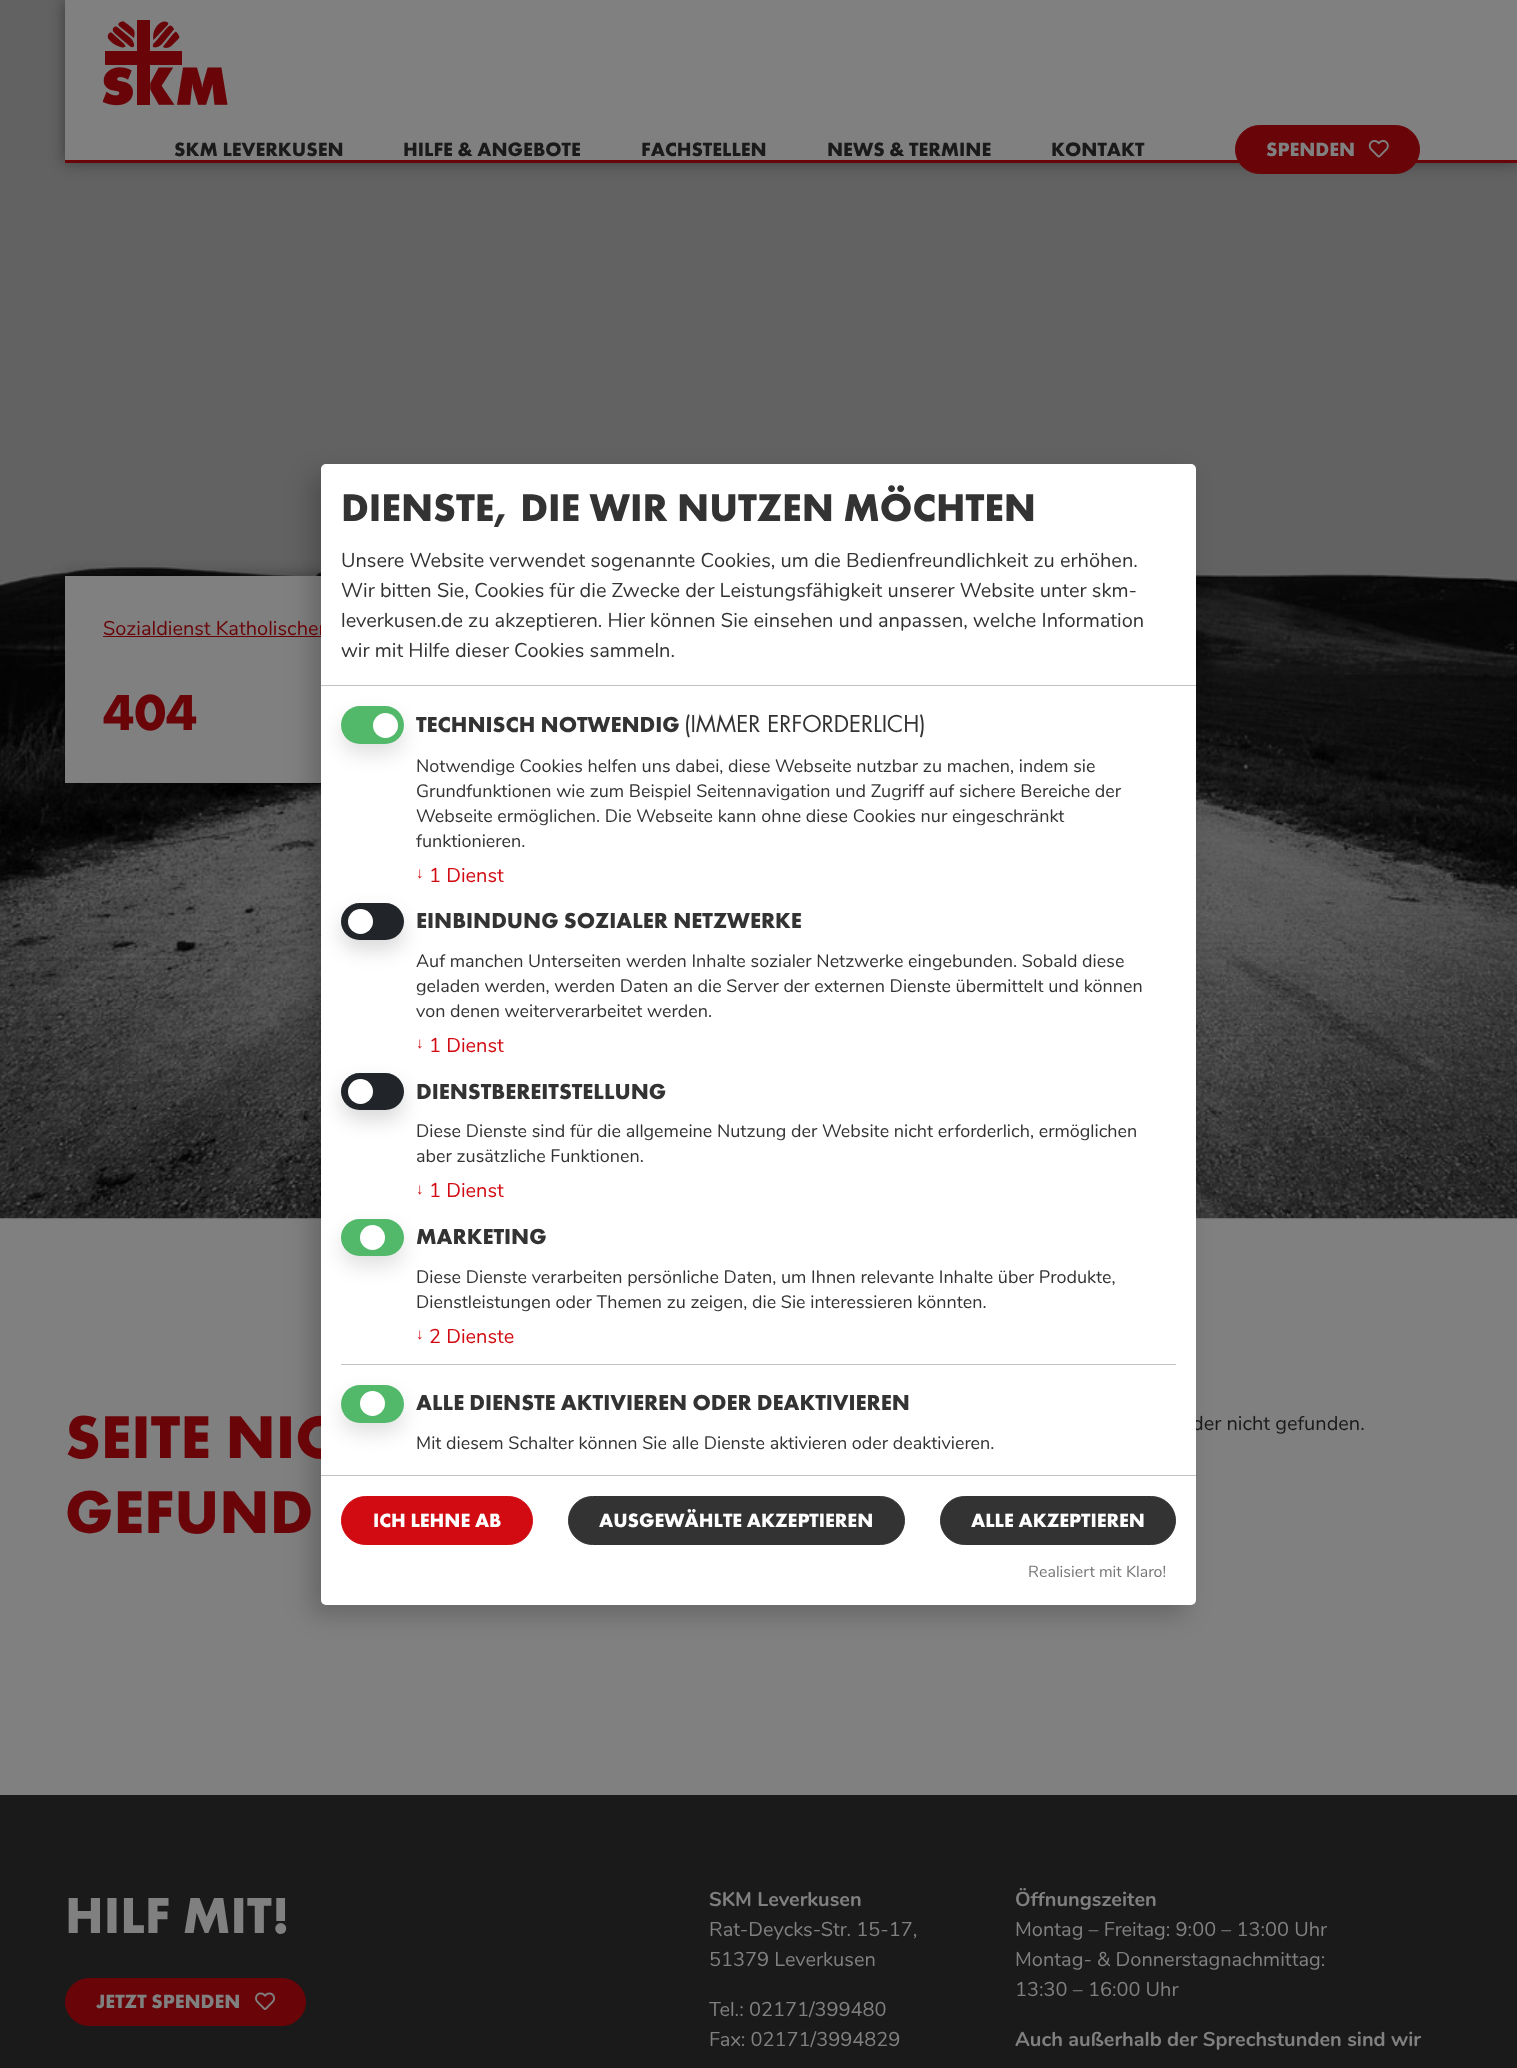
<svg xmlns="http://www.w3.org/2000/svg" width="1517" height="2068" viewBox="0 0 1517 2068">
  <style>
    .t1 { font: bold 20px Futura; fill: #1a1a1a; }
    .t2 { font: bold 20px Futura; fill: #808080; }
    .t3 { font: 20px Nunito; fill: #690509; }
    .t4 { font: bold 62.5px Futura; fill: #690509; }
    .t5 { font: 20px Nunito; fill: #1a1a1a; }
    .t6 { font: bold 40px Futura; fill: #333; }
    .t7 { font: 20px Nunito; fill: #333; }
    .t8 { font: bold 22.5px Futura; fill: #333; }
    .t9 { font: 22.5px Futura; fill: #333; }
    .t10 { font: 18px Nunito; fill: #333; }
    .t11 { font: 15px Liberation Sans; fill: #d20a11; }
    .t12 { font: 20px Nunito; fill: #d20a11; }
    .t13 { font: bold 20px Futura; fill: #fff; }
    .t14 { font: 16px Nunito; fill: #777; }
    .t15 { font: bold 52.5px Futura; fill: #690509; }
    .t16 { font: bold 52.5px Futura; fill: #808080; }
    .t17 { font: bold 20px Nunito; fill: #808080; }
    .t18 { font: 20px Nunito; fill: #808080; }
  </style>
  <rect width="100%" height="100%" fill="#808080"/>
  <image x="0" y="0" width="1517" height="1219" href="images/3.png"/>
  <rect x="65" y="0" width="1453" height="163" fill="#00000066" filter="blur(7.5px)"/>
  <rect x="65" y="0" width="1452" height="160" fill="#808080"/>
  <rect x="65" y="160" width="1452" height="3" fill="#690509"/>
  <image x="103" y="20" width="125" height="86" href="images/1.png"/>
  <text x="174" y="156" class="t1">SKM LEVERKUSEN</text>
  <text x="403" y="156" class="t1">HILFE &amp; ANGEBOTE</text>
  <text x="641" y="156" class="t1">FACHSTELLEN</text>
  <text x="827" y="156" class="t1">NEWS &amp; TERMINE</text>
  <text x="1051" y="156" class="t1">KONTAKT</text>
  <rect x="1235.5" y="125.5" width="184" height="48" rx="24" fill="#690509" stroke="#690509"/>
  <text x="1266" y="156" class="t2">SPENDEN</text>
  <image x="1368" y="140" width="21" height="18" href="images/2.png"/>
  <rect x="65" y="576" width="675" height="207" fill="#00000066" filter="blur(7.5px)"/>
  <rect x="65" y="576" width="256" height="207" fill="#808080"/>
  <rect x="103" y="636" width="218" height="1" fill="#690509"/>
  <rect x="311" y="474" width="875" height="1141" rx="5" fill="#00000033" filter="blur(12.5px)"/>
  <text x="103" y="635" class="t3">Sozialdienst Katholischer</text>
  <text x="65" y="1458" class="t4">SEITE NIC</text>
  <text x="1192" y="1430" class="t5">der nicht gefunden.</text>
  <rect x="321" y="464" width="875" height="1141" rx="5" fill="#fff"/>
  <rect x="321" y="685" width="875" height="1" fill="#c2c2c2"/>
  <text x="341" y="521" class="t6">DIENSTE, DIE WIR NUTZEN MÖCHTEN</text>
  <text x="341" y="567" class="t7">Unsere Website verwendet sogenannte Cookies, um die Bedienfreundlichkeit zu erhöhen.</text>
  <text x="341" y="597" class="t7">Wir bitten Sie, Cookies für die Zwecke der Leistungsfähigkeit unserer Website unter skm-</text>
  <text x="341" y="627" class="t7">leverkusen.de zu akzeptieren. Hier können Sie einsehen und anpassen, welche Information</text>
  <text x="341" y="657" class="t7">wir mit Hilfe dieser Cookies sammeln.</text>
  <rect x="341" y="716" width="63" height="38" rx="19" fill="#0000001f" filter="blur(10px)"/>
  <rect x="341" y="706" width="63" height="38" rx="19" fill="#53b96a"/>
  <circle cx="385.5" cy="725.5" r="12.5" fill="#fff"/>
  <text x="416" y="732" class="t8">TECHNISCH NOTWENDIG</text>
  <text x="684" y="732" class="t9">(IMMER ERFORDERLICH)</text>
  <text x="416" y="772" class="t10">Notwendige Cookies helfen uns dabei, diese Webseite nutzbar zu machen, indem sie</text>
  <text x="416" y="797" class="t10">Grundfunktionen wie zum Beispiel Seitennavigation und Zugriff auf sichere Bereiche der</text>
  <text x="416" y="822" class="t10">Webseite ermöglichen. Die Webseite kann ohne diese Cookies nur eingeschränkt</text>
  <text x="416" y="847" class="t10">funktionieren.</text>
  <text x="416" y="878" class="t11">↓</text>
  <text x="429" y="882" class="t12">1 Dienst</text>
  <rect x="341" y="913" width="63" height="37" rx="18.5" fill="#00000026" filter="blur(10px)"/>
  <rect x="341" y="903" width="63" height="37" rx="18.5" fill="#212529"/>
  <circle cx="360.5" cy="921.5" r="12.5" fill="#fff"/>
  <text x="416" y="928" class="t8">EINBINDUNG SOZIALER NETZWERKE</text>
  <text x="416" y="967" class="t10">Auf manchen Unterseiten werden Inhalte sozialer Netzwerke eingebunden. Sobald diese</text>
  <text x="416" y="992" class="t10">geladen werden, werden Daten an die Server der externen Dienste übermittelt und können</text>
  <text x="416" y="1017" class="t10">von denen weiterverarbeitet werden.</text>
  <text x="416" y="1048" class="t11">↓</text>
  <text x="429" y="1052" class="t12">1 Dienst</text>
  <rect x="341" y="1083" width="63" height="37" rx="18.5" fill="#00000026" filter="blur(10px)"/>
  <rect x="341" y="1073" width="63" height="37" rx="18.5" fill="#212529"/>
  <circle cx="360.5" cy="1091.5" r="12.5" fill="#fff"/>
  <text x="416" y="1099" class="t8">DIENSTBEREITSTELLUNG</text>
  <text x="416" y="1137" class="t10">Diese Dienste sind für die allgemeine Nutzung der Website nicht erforderlich, ermöglichen</text>
  <text x="416" y="1162" class="t10">aber zusätzliche Funktionen.</text>
  <text x="416" y="1194" class="t11">↓</text>
  <text x="429" y="1197" class="t12">1 Dienst</text>
  <rect x="341" y="1229" width="63" height="37" rx="18.5" fill="#0000001f" filter="blur(10px)"/>
  <rect x="341" y="1219" width="63" height="37" rx="18.5" fill="#53b96a"/>
  <circle cx="372.5" cy="1237.5" r="12.5" fill="#fff"/>
  <text x="416" y="1244" class="t8">MARKETING</text>
  <text x="416" y="1283" class="t10">Diese Dienste verarbeiten persönliche Daten, um Ihnen relevante Inhalte über Produkte,</text>
  <text x="416" y="1308" class="t10">Dienstleistungen oder Themen zu zeigen, die Sie interessieren könnten.</text>
  <text x="416" y="1339" class="t11">↓</text>
  <text x="429" y="1343" class="t12">2 Dienste</text>
  <rect x="341" y="1364" width="835" height="1" fill="#c2c2c2"/>
  <rect x="341" y="1395" width="63" height="38" rx="19" fill="#0000001f" filter="blur(10px)"/>
  <rect x="341" y="1385" width="63" height="38" rx="19" fill="#53b96a"/>
  <circle cx="372.5" cy="1403.5" r="12.5" fill="#fff"/>
  <text x="416" y="1410" class="t8">ALLE DIENSTE AKTIVIEREN ODER DEAKTIVIEREN</text>
  <text x="416" y="1449" class="t10">Mit diesem Schalter können Sie alle Dienste aktivieren oder deaktivieren.</text>
  <rect x="321" y="1475" width="875" height="1" fill="#c2c2c2"/>
  <rect x="341.5" y="1496.5" width="191" height="48" rx="24" fill="#d20a11" stroke="#d20a11"/>
  <text x="373" y="1527" class="t13">ICH LEHNE AB</text>
  <rect x="568.5" y="1496.5" width="336" height="48" rx="24" fill="#333" stroke="#333"/>
  <text x="599" y="1527" class="t13">AUSGEWÄHLTE AKZEPTIEREN</text>
  <rect x="940.5" y="1496.5" width="235" height="48" rx="24" fill="#333" stroke="#333"/>
  <text x="971" y="1527" class="t13">ALLE AKZEPTIEREN</text>
  <text x="1028" y="1577" class="t14">Realisiert mit Klaro!</text>
  <text x="103" y="730" class="t15">404</text>
  <text x="65" y="1533" class="t4">GEFUND</text>
  <rect x="0" y="1795" width="1517" height="273" fill="#1a1a1a"/>
  <text x="65" y="1933" class="t16">HILF MIT!</text>
  <rect x="65.5" y="1978.5" width="240" height="47" rx="23.5" fill="#690509" stroke="#690509"/>
  <text x="96" y="2008" class="t2">JETZT SPENDEN</text>
  <image x="255" y="1992" width="20" height="18" href="images/4.png"/>
  <text x="709" y="1906" class="t17">SKM Leverkusen</text>
  <text x="709" y="1936" class="t18">Rat-Deycks-Str. 15-17,</text>
  <text x="709" y="1966" class="t18">51379 Leverkusen</text>
  <text x="709" y="2016" class="t18">Tel.: 02171/399480</text>
  <text x="709" y="2046" class="t18">Fax: 02171/3994829</text>
  <text x="1015" y="1906" class="t17">Öffnungszeiten</text>
  <text x="1015" y="1936" class="t18">Montag – Freitag: 9:00 – 13:00 Uhr</text>
  <text x="1015" y="1966" class="t18">Montag- &amp; Donnerstagnachmittag:</text>
  <text x="1015" y="1996" class="t18">13:30 – 16:00 Uhr</text>
  <text x="1015" y="2046" class="t17">Auch außerhalb der Sprechstunden sind wir</text>
</svg>
